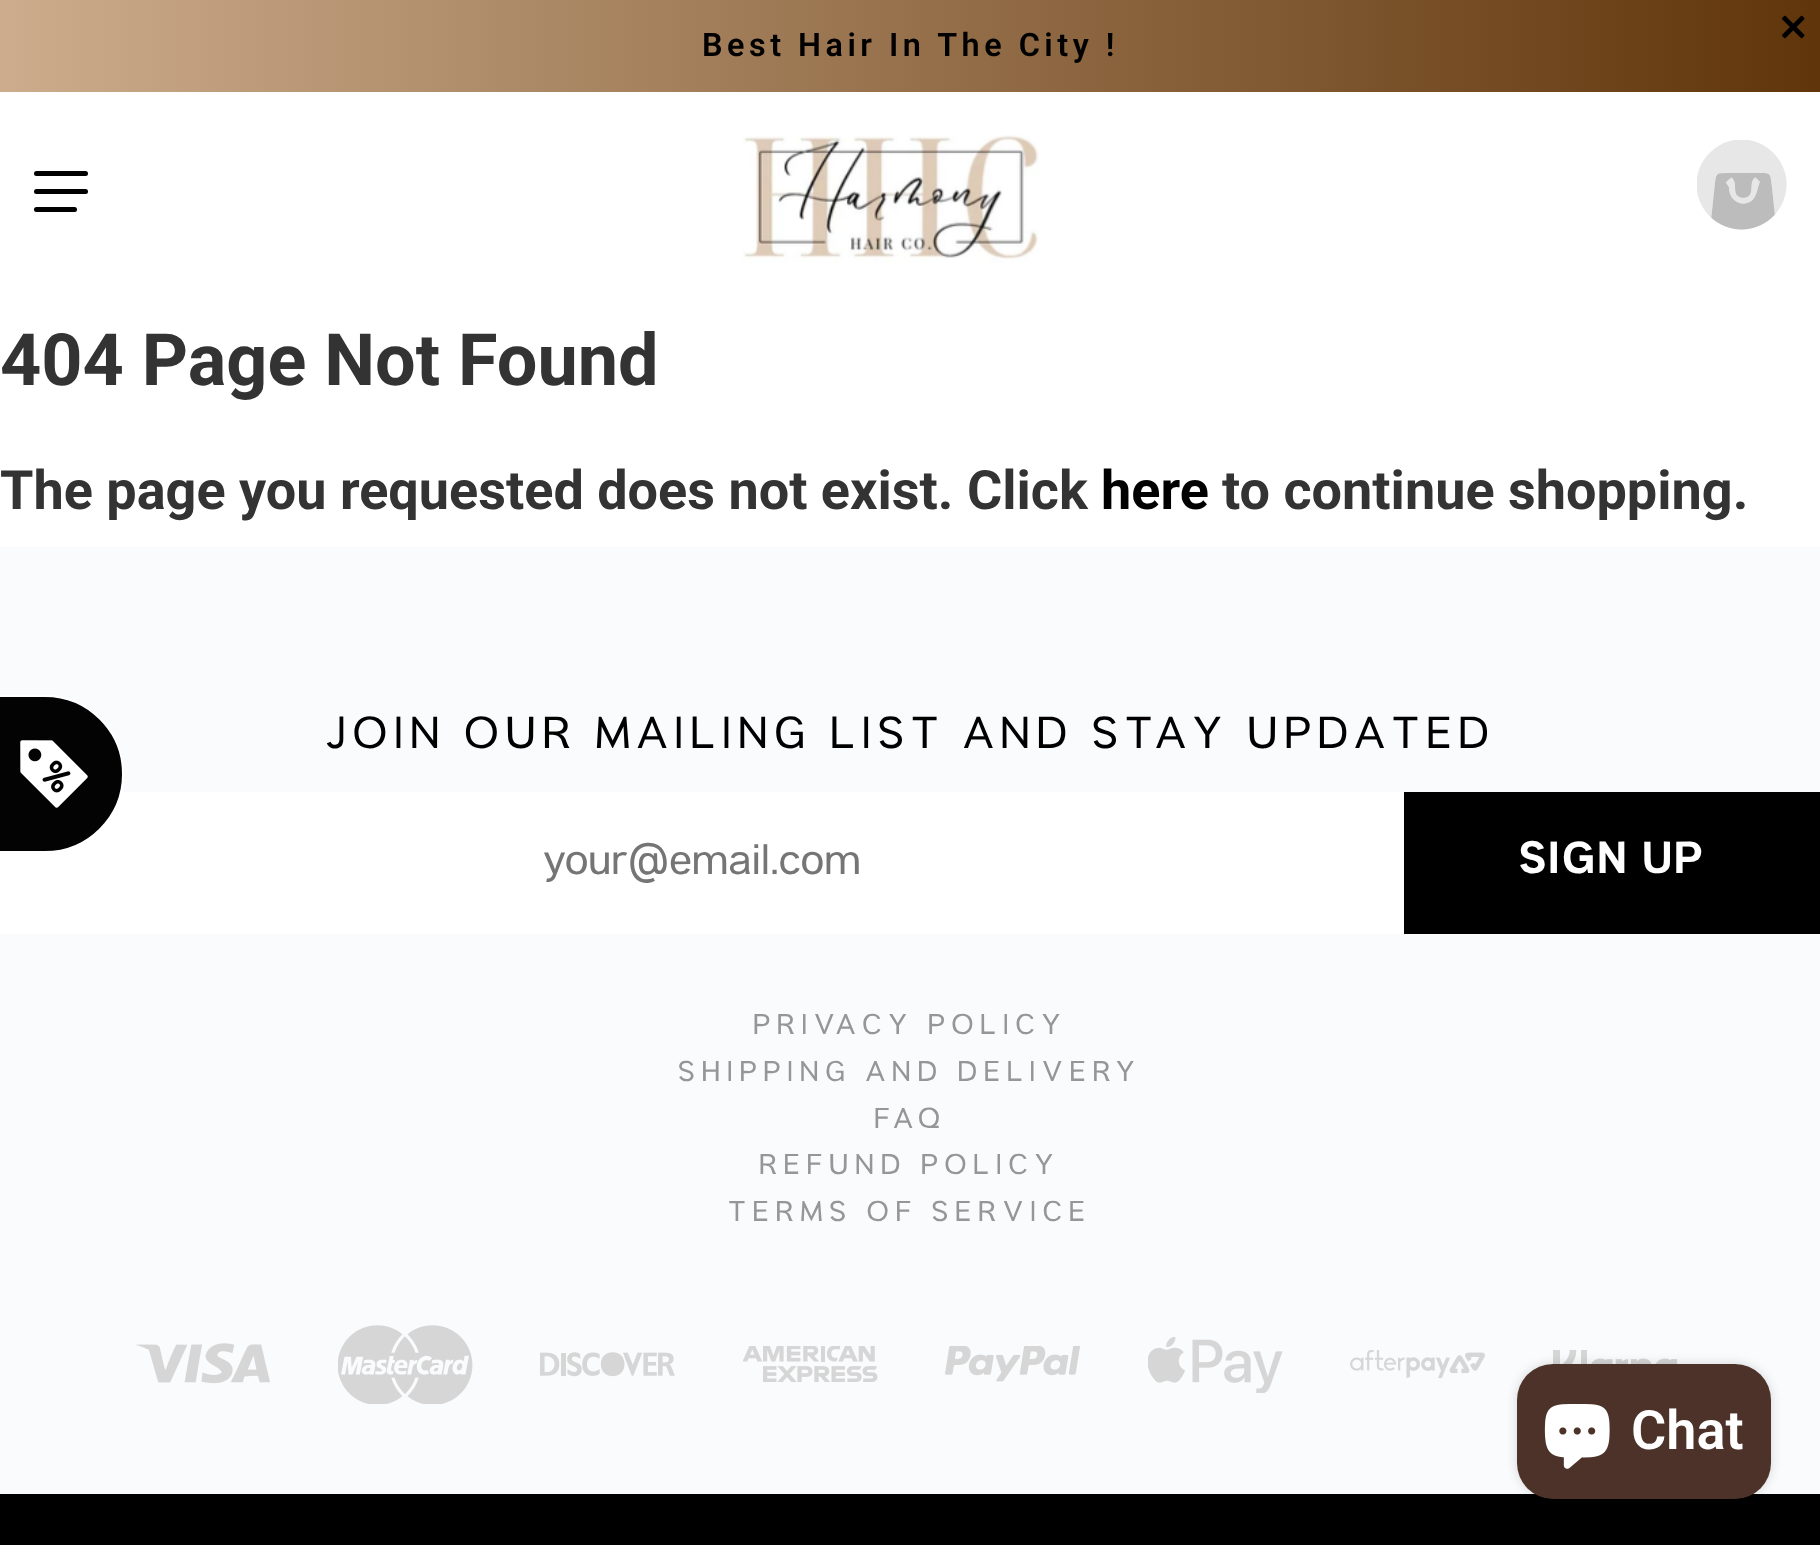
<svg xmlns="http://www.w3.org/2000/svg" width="1820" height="1545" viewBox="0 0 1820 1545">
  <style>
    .t1 { font: 600 32.4px Roboto; letter-spacing: 4.5px; fill: #000; }
    .t2 { font: bold 72px Roboto; fill: #333; }
    .t3 { font: bold 54px Roboto; fill: #333; }
    .t4 { font: bold 54px Roboto; fill: #000; }
    .t5 { font: 45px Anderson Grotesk; letter-spacing: 6.75px; fill: #000; }
    .t6 { font: 42.75px Anderson Grotesk; fill: #757575; }
    .t7 { font: 800 45px Anderson Grotesk; letter-spacing: 2.25px; fill: #fff; }
    .t8 { font: 28.75px Anderson Grotesk; letter-spacing: 6.75px; fill: #969696; }
    .t9 { font: 600 54px Roboto; fill: #fff; }
  </style>
  <defs>
    <linearGradient id="g1" gradientUnits="userSpaceOnUse" x1="0" y1="46" x2="1820" y2="46"><stop offset="0" stop-color="#ccac8c"/><stop offset="1" stop-color="#60350b"/></linearGradient>
  </defs>
  <rect width="100%" height="100%" fill="#fff"/>
  <rect x="0" y="0" width="1820" height="92" fill="url(#g1)"/>
  <image x="1782" y="15" width="23" height="24" href="images/1.png"/>
  <text x="702" y="56" class="t1">Best Hair In The City !</text>
  <rect x="34" y="171" width="54" height="5" rx="2.5" fill="#000"/>
  <rect x="34" y="189" width="54" height="5" rx="2.5" fill="#000"/>
  <rect x="34" y="207" width="43" height="5" rx="2.5" fill="#000"/>
  <image x="742" y="135" width="297" height="128" href="images/2.png"/>
  <image x="1697" y="140" width="90" height="90" href="images/3.png"/>
  <text x="0" y="385" class="t2">404 Page Not Found</text>
  <text x="0" y="509" class="t3">The page you requested does not exist. Click</text>
  <text x="1101" y="509" class="t4">here</text>
  <text x="1222" y="509" class="t3">to continue shopping.</text>
  <rect x="0" y="547" width="1820" height="947" fill="#f9fbfd"/>
  <text x="325" y="748" class="t5">JOIN OUR MAILING LIST AND STAY UPDATED</text>
  <rect x="0" y="792" width="1404" height="142" fill="#fff"/>
  <text x="543" y="874" class="t6">your@email.com</text>
  <rect x="1404" y="792" width="416" height="142" fill="#000"/>
  <text x="1519" y="873" class="t7">SIGN UP</text>
  <text x="753" y="1034" class="t8">PRIVACY POLICY</text>
  <text x="678" y="1081" class="t8">SHIPPING AND DELIVERY</text>
  <text x="874" y="1128" class="t8">FAQ</text>
  <text x="759" y="1174" class="t8">REFUND POLICY</text>
  <text x="728" y="1221" class="t8">TERMS OF SERVICE</text>
  <image x="135" y="1343" width="135" height="41" href="images/4.png"/>
  <image x="338" y="1325" width="135" height="79" href="images/5.png"/>
  <image x="540" y="1352" width="135" height="25" href="images/6.png"/>
  <image x="743" y="1346" width="135" height="36" href="images/7.png"/>
  <image x="945" y="1346" width="135" height="36" href="images/8.png"/>
  <image x="1148" y="1337" width="135" height="56" href="images/9.png"/>
  <image x="1350" y="1350" width="135" height="29" href="images/10.png"/>
  <image x="1553" y="1350" width="125" height="14" href="images/11.png"/>
  <rect x="0" y="1494" width="1820" height="51" fill="#000"/>
  <path d="M-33 696H45C88 696 123 731 123 774C123 817 88 852 45 852H-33Z" fill="#030303" stroke="#fff" stroke-width="2"/>
  <image x="20" y="740" width="68" height="68" href="images/12.png"/>
  <rect x="1517" y="1364" width="254" height="135" rx="36" fill="#00000026" filter="blur(5.5px)"/>
  <rect x="1517" y="1364" width="254" height="135" rx="36" fill="#4c3228"/>
  <image x="1544" y="1404" width="66" height="65" href="images/13.png"/>
  <text x="1631" y="1449" class="t9">Chat</text>
</svg>
